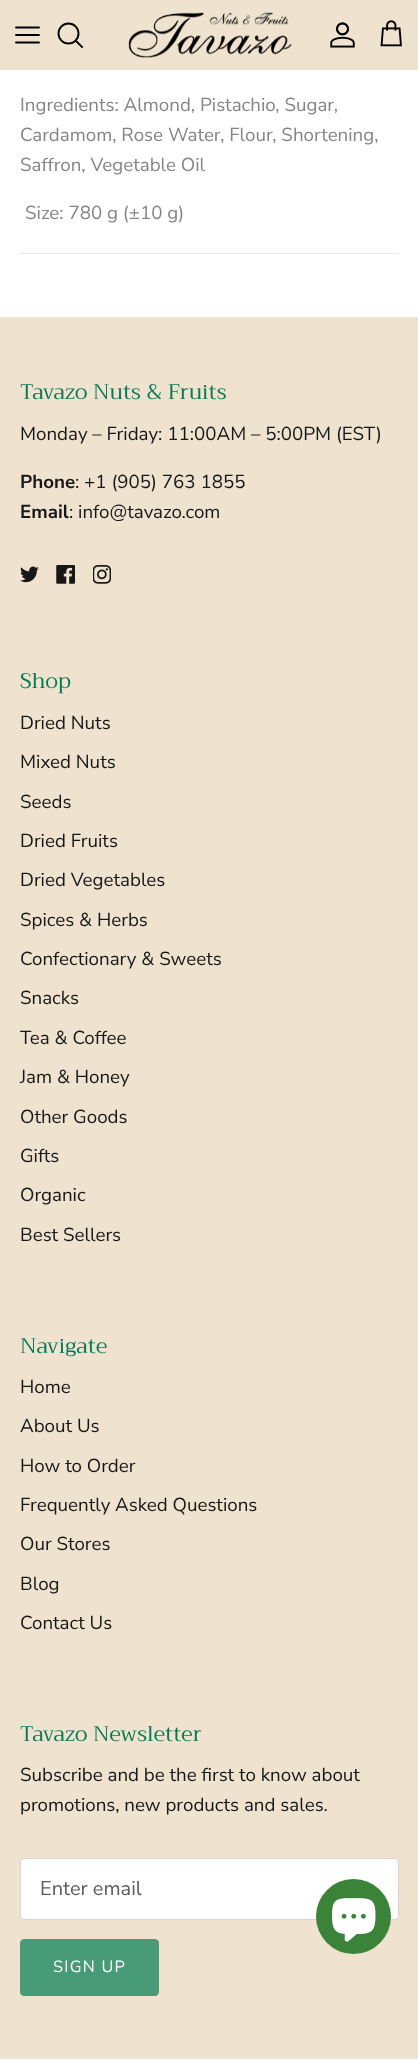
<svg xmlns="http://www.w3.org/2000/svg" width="418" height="2060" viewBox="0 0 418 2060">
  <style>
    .t1 { font: 18.75px Nunito Sans; fill: #858585; }
    .t2 { font: 21.25px Trirong; fill: #047956; }
    .t3 { font: 18.75px Nunito Sans; fill: #171717; }
    .t4 { font: bold 18.75px Nunito Sans; fill: #171717; }
    .t5 { font: 20px Nunito Sans; fill: #5c5c5c; }
    .t6 { font: 16.25px Nunito Sans; letter-spacing: 1.25px; fill: #fff; }
  </style>
  <rect width="100%" height="100%" fill="#fff"/>
  <rect x="0" y="0" width="418" height="70" fill="#efe2cf"/>
  <path d="M16 35H39M16 27.5H39M16 42.5H39" fill="none" stroke="#000" stroke-width="1.9" stroke-linecap="round" stroke-linejoin="round"/>
  <circle cx="68.5" cy="33.5" r="10" fill="none" stroke="#000" stroke-width="1.9"/>
  <path d="M76 41L82 47" fill="none" stroke="#000" stroke-width="1.9" stroke-linecap="square"/>
  <image x="128" y="12" width="164" height="46" href="images/1.png"/>
  <image x="330" y="22" width="25" height="26" href="images/2.png"/>
  <image x="380" y="20" width="22" height="27" href="images/3.png"/>
  <rect x="20" y="253" width="379" height="1" fill="#e7e7e7"/>
  <text x="20" y="111" class="t1">Ingredients: Almond, Pistachio, Sugar,</text>
  <text x="20" y="141" class="t1">Cardamom, Rose Water, Flour, Shortening,</text>
  <text x="20" y="171" class="t1">Saffron, Vegetable Oil</text>
  <text x="25" y="219" class="t1">Size: 780 g (±10 g)</text>
  <rect x="0" y="317" width="418" height="1742" fill="#efe2cf"/>
  <text x="20" y="399" class="t2">Tavazo Nuts &amp; Fruits</text>
  <text x="20" y="440" class="t3">Monday – Friday: 11:00AM – 5:00PM (EST)</text>
  <text x="20" y="488" class="t4">Phone</text>
  <text x="75" y="488" class="t3">: +1 (905) 763 1855</text>
  <text x="20" y="518" class="t4">Email</text>
  <text x="69" y="518" class="t3">: info@tavazo.com</text>
  <image x="20" y="566" width="19" height="17" href="images/4.png"/>
  <image x="56" y="565" width="19" height="19" href="images/5.png"/>
  <image x="93" y="565" width="18" height="19" href="images/6.png"/>
  <text x="20" y="688" class="t2">Shop</text>
  <text x="20" y="729" class="t3">Dried Nuts</text>
  <text x="20" y="768" class="t3">Mixed Nuts</text>
  <text x="20" y="808" class="t3">Seeds</text>
  <text x="20" y="847" class="t3">Dried Fruits</text>
  <text x="20" y="886" class="t3">Dried Vegetables</text>
  <text x="20" y="926" class="t3">Spices &amp; Herbs</text>
  <text x="20" y="965" class="t3">Confectionary &amp; Sweets</text>
  <text x="20" y="1004" class="t3">Snacks</text>
  <text x="20" y="1044" class="t3">Tea &amp; Coffee</text>
  <text x="20" y="1083" class="t3">Jam &amp; Honey</text>
  <text x="20" y="1123" class="t3">Other Goods</text>
  <text x="20" y="1162" class="t3">Gifts</text>
  <text x="20" y="1201" class="t3">Organic</text>
  <text x="20" y="1241" class="t3">Best Sellers</text>
  <text x="20" y="1353" class="t2">Navigate</text>
  <text x="20" y="1393" class="t3">Home</text>
  <text x="20" y="1432" class="t3">About Us</text>
  <text x="20" y="1472" class="t3">How to Order</text>
  <text x="20" y="1511" class="t3">Frequently Asked Questions</text>
  <text x="20" y="1550" class="t3">Our Stores</text>
  <text x="20" y="1590" class="t3">Blog</text>
  <text x="20" y="1629" class="t3">Contact Us</text>
  <text x="20" y="1741" class="t2">Tavazo Newsletter</text>
  <text x="20" y="1781" class="t3">Subscribe and be the first to know about</text>
  <text x="20" y="1811" class="t3">promotions, new products and sales.</text>
  <rect x="20.5" y="1858.5" width="378" height="61" rx="3.5" fill="#fff" stroke="#d6d6d6"/>
  <text x="40" y="1895" class="t5">Enter email</text>
  <rect x="20.5" y="1939.5" width="138" height="56" rx="3.5" fill="#479b77" stroke="#479b77"/>
  <text x="53" y="1972" class="t6">SIGN UP</text>
  <circle cx="353.5" cy="1916.5" r="37.5" fill="#3c833a"/>
  <image x="332" y="1898" width="44" height="44" href="images/7.png"/>
</svg>
